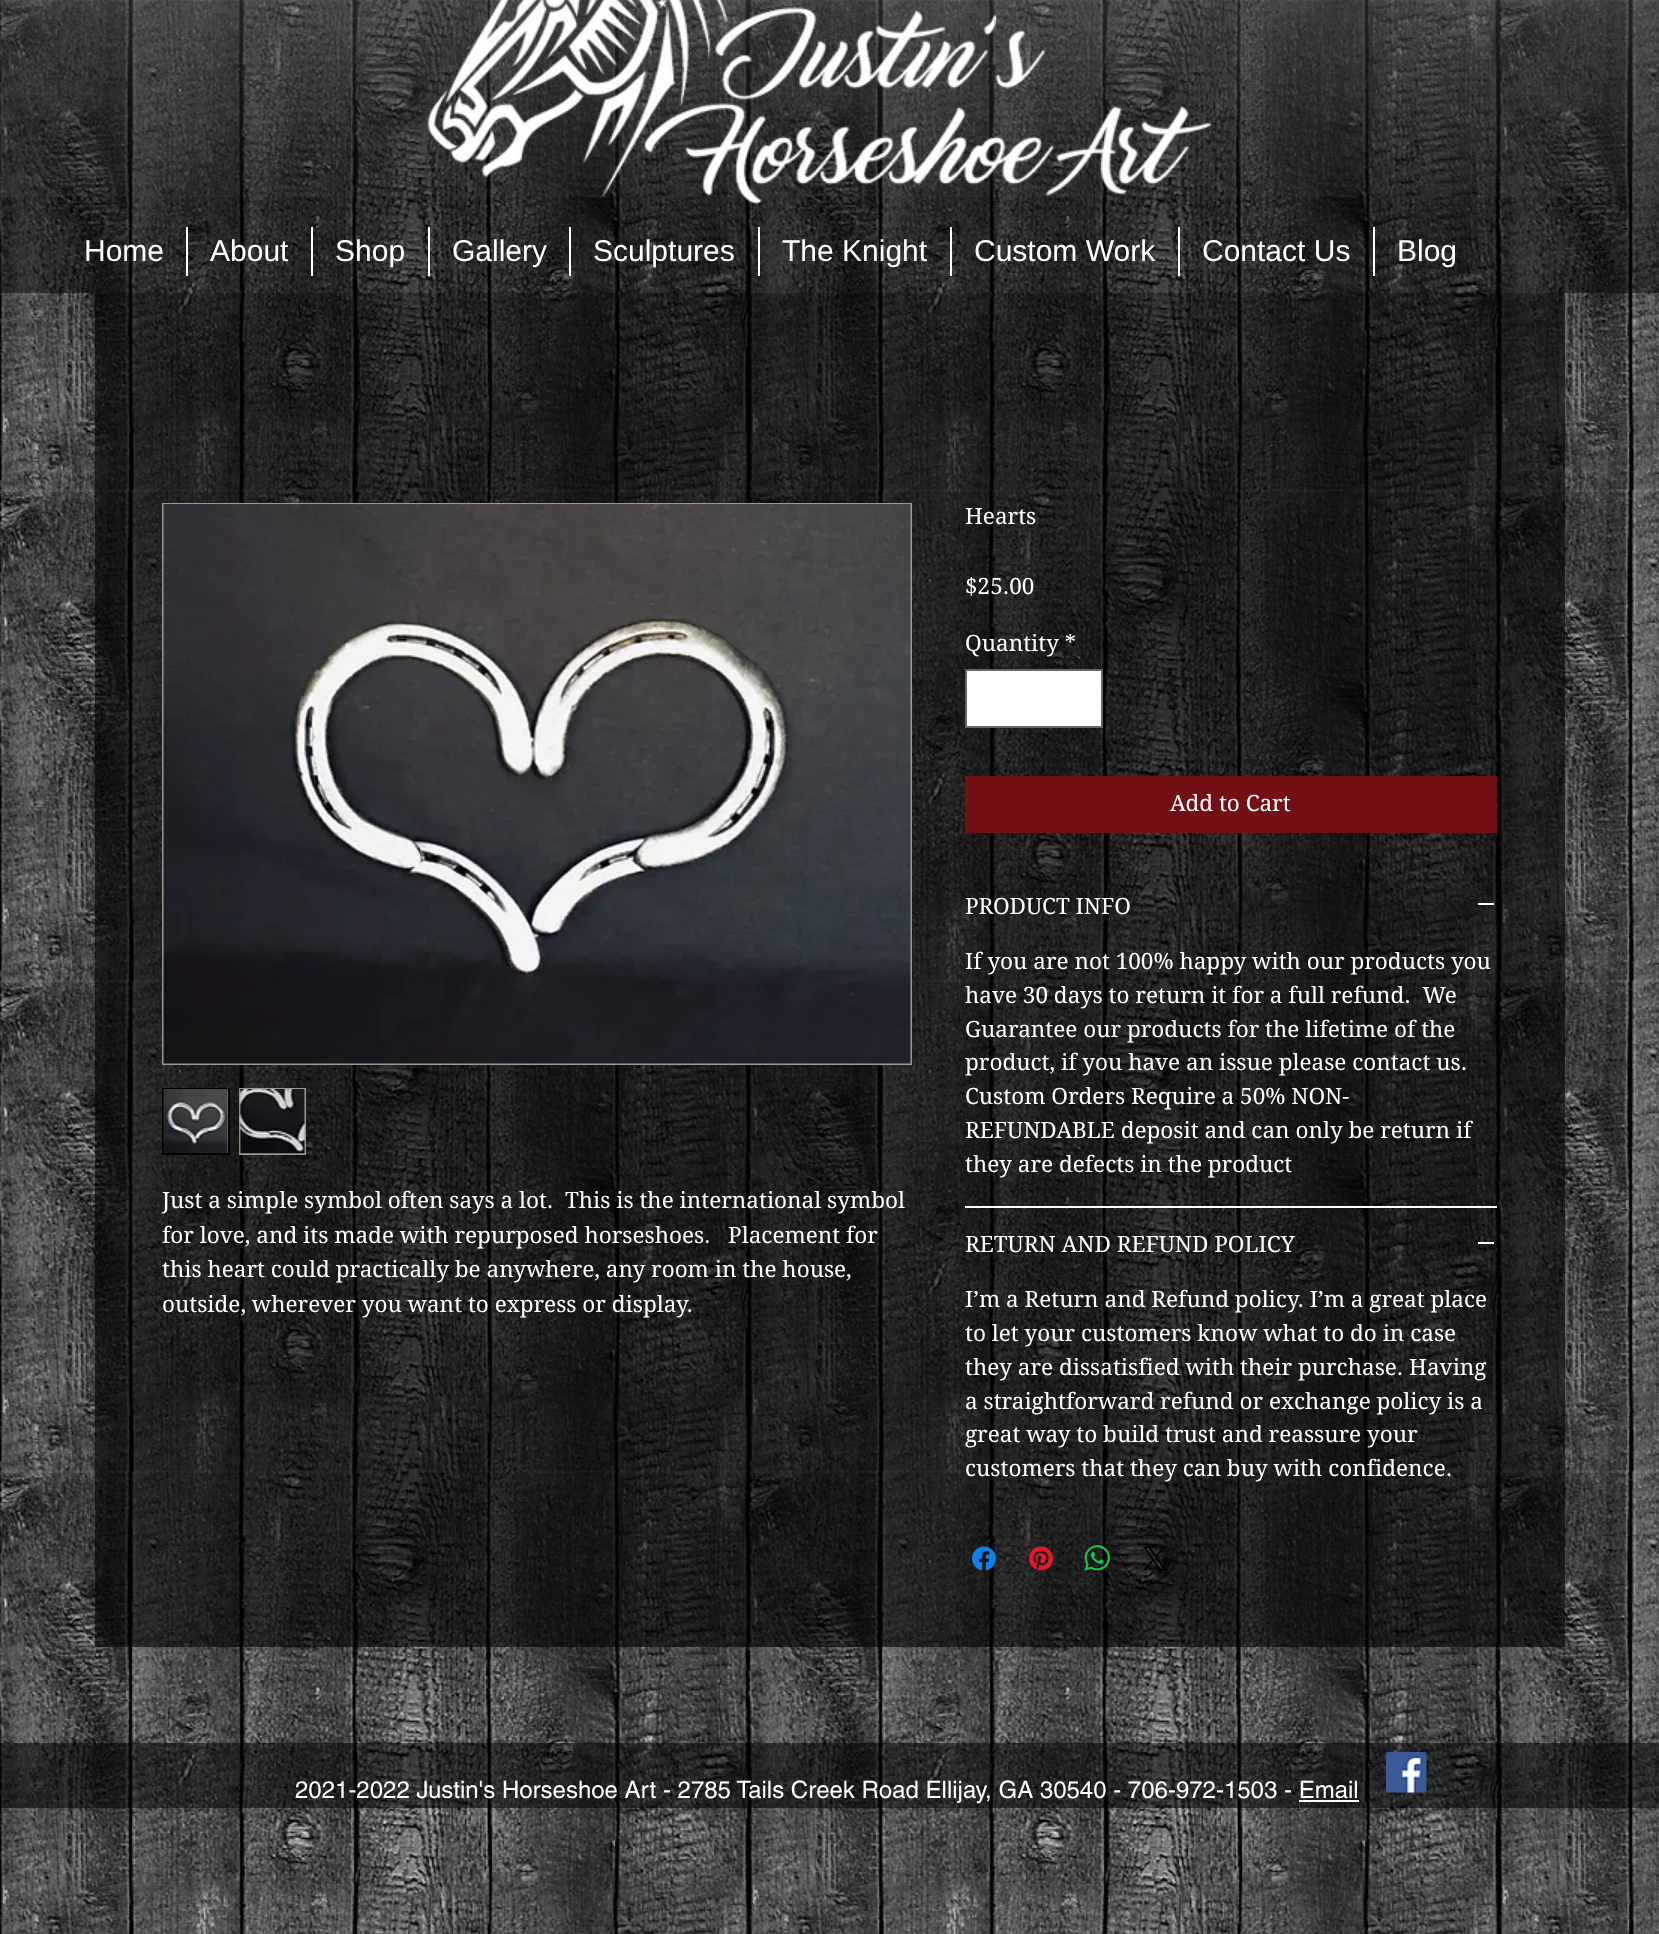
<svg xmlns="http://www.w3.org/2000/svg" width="1659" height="1934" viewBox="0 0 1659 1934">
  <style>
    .t1 { font: 30px Liberation Sans; fill: #fff; }
    .t2 { font: 22.5px 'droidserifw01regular'; fill: #fff; }
    .t3 { font: 24px helvetica; fill: #fff; }
  </style>
  <rect width="100%" height="100%" fill="#fff"/>
  <image x="0" y="0" width="1659" height="1934" href="images/1.png"/>
  <rect x="0" y="0" width="1659" height="293" fill="#00000075"/>
  <image x="0" y="0" width="1659" height="197" href="images/2.png"/>
  <image x="427" y="0" width="786" height="205" href="images/3.png"/>
  <text x="84" y="261" class="t1">Home</text>
  <rect x="186" y="227" width="2" height="49" fill="#fff"/>
  <text x="210" y="261" class="t1">About</text>
  <rect x="311" y="227" width="2" height="49" fill="#fff"/>
  <text x="335" y="261" class="t1">Shop</text>
  <rect x="428" y="227" width="2" height="49" fill="#fff"/>
  <text x="452" y="261" class="t1">Gallery</text>
  <rect x="569" y="227" width="2" height="49" fill="#fff"/>
  <text x="593" y="261" class="t1">Sculptures</text>
  <rect x="758" y="227" width="2" height="49" fill="#fff"/>
  <text x="782" y="261" class="t1">The Knight</text>
  <rect x="950" y="227" width="2" height="49" fill="#fff"/>
  <text x="974" y="261" class="t1">Custom Work</text>
  <rect x="1178" y="227" width="2" height="49" fill="#fff"/>
  <text x="1202" y="261" class="t1">Contact Us</text>
  <rect x="1373" y="227" width="2" height="49" fill="#fff"/>
  <text x="1397" y="261" class="t1">Blog</text>
  <rect x="95" y="293" width="1470" height="1354" fill="#00000099"/>
  <rect x="163" y="504" width="748" height="560" fill="none" stroke="#999" stroke-width="2"/>
  <image x="163" y="504" width="748" height="560" href="images/4.png"/>
  <rect x="227" y="1090" width="1" height="63" fill="#999"/>
  <rect x="163" y="1089" width="66" height="65" fill="none" stroke="#000" stroke-width="2"/>
  <image x="163" y="1089" width="66" height="65" href="images/5.png"/>
  <rect x="239" y="1088" width="67" height="67" fill="#999"/>
  <image x="239" y="1089" width="66" height="65" href="images/6.png"/>
  <text x="162" y="1208" class="t2" xml:space="preserve">Just a simple symbol often says a lot.  This is the international symbol</text>
  <text x="162" y="1243" class="t2" xml:space="preserve">for love, and its made with repurposed horseshoes.   Placement for</text>
  <text x="162" y="1277" class="t2">this heart could practically be anywhere, any room in the house,</text>
  <text x="162" y="1312" class="t2">outside, wherever you want to express or display.</text>
  <text x="965" y="524" class="t2">Hearts</text>
  <text x="965" y="594" class="t2">$25.00</text>
  <text x="965" y="651" class="t2">Quantity *</text>
  <rect x="966" y="670" width="136" height="57" fill="#fff" stroke="#666" stroke-width="2"/>
  <rect x="965" y="776" width="532" height="57" fill="#731016"/>
  <text x="1170" y="811" class="t2">Add to Cart</text>
  <rect x="965" y="1206" width="532" height="2" fill="#fff"/>
  <text x="965" y="914" class="t2">PRODUCT INFO</text>
  <rect x="1478" y="903" width="16" height="2" fill="#fff"/>
  <text x="965" y="969" class="t2">If you are not 100% happy with our products you</text>
  <text x="965" y="1003" class="t2" xml:space="preserve">have 30 days to return it for a full refund.  We</text>
  <text x="965" y="1037" class="t2">Guarantee our products for the lifetime of the</text>
  <text x="965" y="1070" class="t2">product, if you have an issue please contact us.</text>
  <text x="965" y="1104" class="t2">Custom Orders Require a 50% NON-</text>
  <text x="965" y="1138" class="t2">REFUNDABLE deposit and can only be return if</text>
  <text x="965" y="1172" class="t2">they are defects in the product</text>
  <text x="965" y="1252" class="t2">RETURN AND REFUND POLICY</text>
  <rect x="1478" y="1242" width="16" height="2" fill="#fff"/>
  <text x="965" y="1307" class="t2">I’m a Return and Refund policy. I’m a great place</text>
  <text x="965" y="1341" class="t2">to let your customers know what to do in case</text>
  <text x="965" y="1375" class="t2">they are dissatisfied with their purchase. Having</text>
  <text x="965" y="1409" class="t2">a straightforward refund or exchange policy is a</text>
  <text x="965" y="1442" class="t2">great way to build trust and reassure your</text>
  <text x="965" y="1476" class="t2">customers that they can buy with confidence.</text>
  <image x="972" y="1546" width="24" height="25" href="images/7.png"/>
  <image x="1029" y="1546" width="24" height="25" href="images/8.png"/>
  <image x="1084" y="1545" width="26" height="26" href="images/9.png"/>
  <image x="1143" y="1546" width="23" height="25" href="images/10.png"/>
  <rect x="0" y="1743" width="1659" height="65" fill="#00000082"/>
  <text x="295" y="1798" class="t3">2021-2022 Justin's Horseshoe Art - 2785 Tails Creek Road Ellijay, GA 30540 - 706-972-1503 - Email</text>
  <rect x="1299" y="1800" width="60" height="2" fill="#fff"/>
  <image x="1386" y="1752" width="41" height="41" href="images/11.png"/>
</svg>
